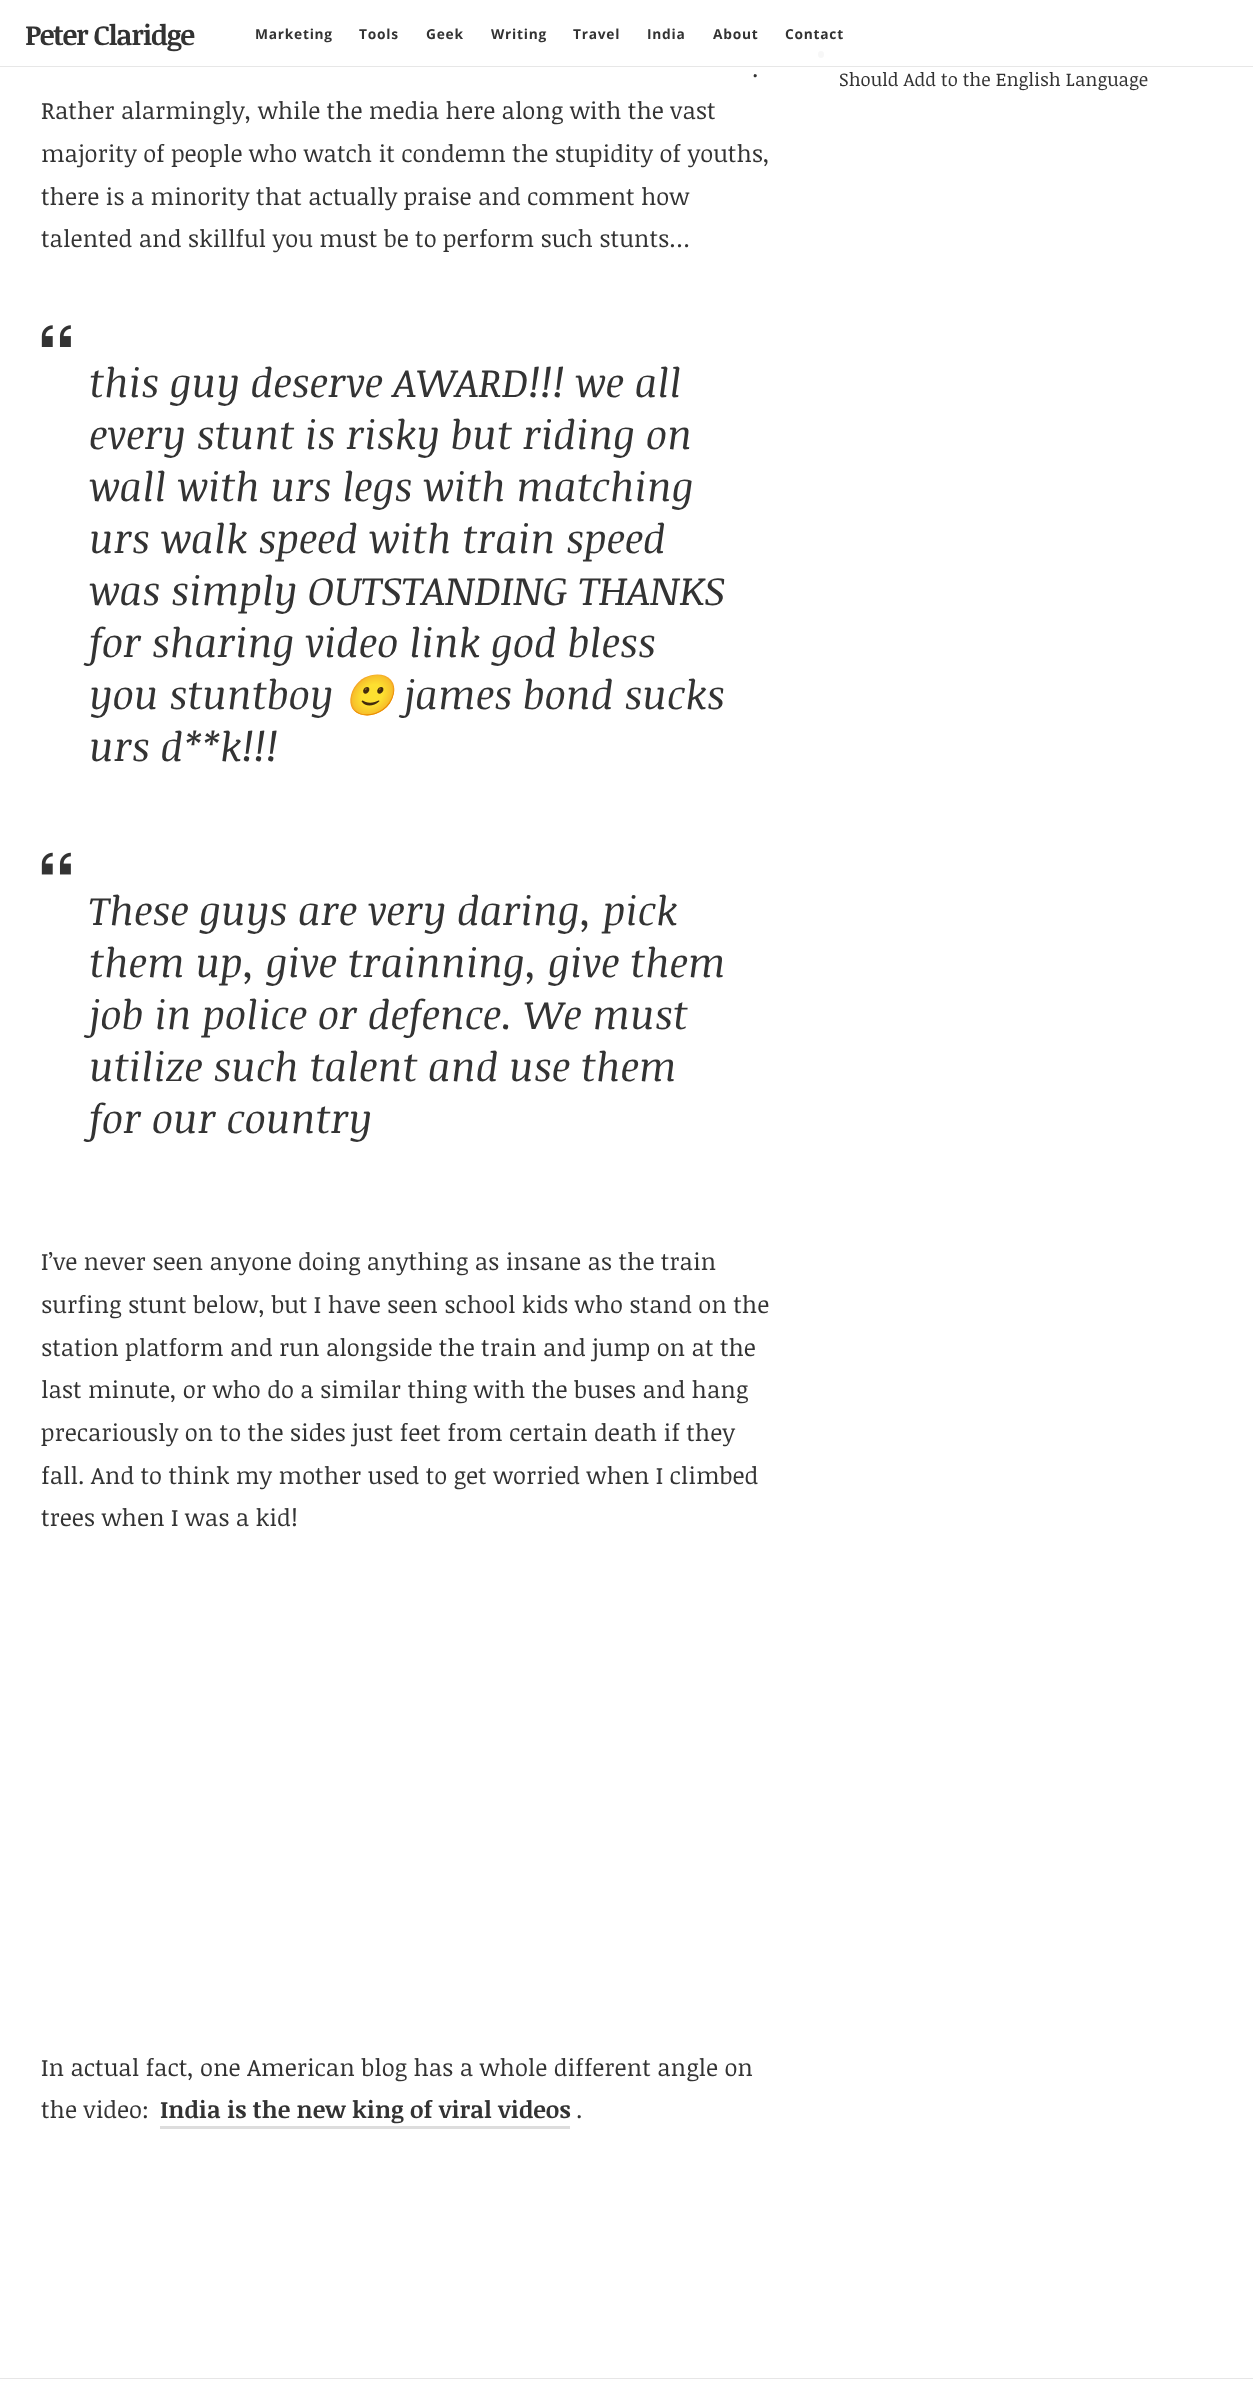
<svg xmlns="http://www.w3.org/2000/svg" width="1253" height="2383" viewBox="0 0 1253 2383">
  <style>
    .t1 { font: bold 28px Noticia Text; letter-spacing: -1.25px; fill: #333; }
    .t2 { font: bold 13.75px Open Sans; letter-spacing: 0.75px; fill: #333; }
    .t3 { font: 23.75px Noticia Text; fill: #333; }
    .t4 { font: italic 40px Noticia Text; fill: #333; }
    .t5 { font: italic 40px Noto Color Emoji; fill: #333; }
    .t6 { font: bold 23.75px Noticia Text; fill: #333; }
    .t7 { font: 18.5px Noticia Text; fill: #333; }
  </style>
  <rect width="100%" height="100%" fill="#fff"/>
  <rect x="818" y="51" width="6" height="7" rx="3" fill="#666"/>
  <rect x="818" y="51" width="6" height="7" fill="#fffffff2"/>
  <rect x="0" y="66" width="1253" height="1" fill="#e7e7e7"/>
  <text x="25" y="45" class="t1">Peter Claridge</text>
  <text x="255" y="39" class="t2">Marketing</text>
  <text x="359" y="39" class="t2">Tools</text>
  <text x="426" y="39" class="t2">Geek</text>
  <text x="491" y="39" class="t2">Writing</text>
  <text x="573" y="39" class="t2">Travel</text>
  <text x="647" y="39" class="t2">India</text>
  <text x="713" y="39" class="t2">About</text>
  <text x="785" y="39" class="t2">Contact</text>
  <text x="752" y="77" class="t3">.</text>
  <text x="41" y="119" class="t3">Rather alarmingly, while the media here along with the vast</text>
  <text x="41" y="162" class="t3">majority of people who watch it condemn the stupidity of youths,</text>
  <text x="41" y="205" class="t3">there is a minority that actually praise and comment how</text>
  <text x="41" y="247" class="t3">talented and skillful you must be to perform such stunts…</text>
  <image x="41" y="325" width="30" height="22" href="images/1.png"/>
  <text x="89" y="397" class="t4">this guy deserve AWARD!!! we all</text>
  <text x="89" y="449" class="t4">every stunt is risky but riding on</text>
  <text x="89" y="501" class="t4">wall with urs legs with matching</text>
  <text x="89" y="553" class="t4">urs walk speed with train speed</text>
  <text x="89" y="605" class="t4">was simply OUTSTANDING THANKS</text>
  <text x="89" y="657" class="t4">for sharing video link god bless</text>
  <text x="89" y="709" class="t4">you stuntboy</text>
  <text x="344" y="709" class="t5">🙂</text>
  <text x="404" y="709" class="t4">james bond sucks</text>
  <text x="89" y="761" class="t4">urs d**k!!!</text>
  <image x="41" y="852" width="30" height="23" href="images/2.png"/>
  <text x="89" y="925" class="t4">These guys are very daring, pick</text>
  <text x="89" y="977" class="t4">them up, give trainning, give them</text>
  <text x="89" y="1029" class="t4">job in police or defence. We must</text>
  <text x="89" y="1081" class="t4">utilize such talent and use them</text>
  <text x="89" y="1133" class="t4">for our country</text>
  <text x="41" y="1270" class="t3">I’ve never seen anyone doing anything as insane as the train</text>
  <text x="41" y="1313" class="t3">surfing stunt below, but I have seen school kids who stand on the</text>
  <text x="41" y="1356" class="t3">station platform and run alongside the train and jump on at the</text>
  <text x="41" y="1398" class="t3">last minute, or who do a similar thing with the buses and hang</text>
  <text x="41" y="1441" class="t3">precariously on to the sides just feet from certain death if they</text>
  <text x="41" y="1484" class="t3">fall. And to think my mother used to get worried when I climbed</text>
  <text x="41" y="1526" class="t3">trees when I was a kid!</text>
  <text x="41" y="2076" class="t3">In actual fact, one American blog has a whole different angle on</text>
  <text x="41" y="2118" class="t3">the video:</text>
  <text x="160" y="2118" class="t6">India is the new king of viral videos</text>
  <rect x="160" y="2126" width="410" height="3" fill="#ddd"/>
  <text x="576" y="2118" class="t3">.</text>
  <text x="839" y="86" class="t7">Should Add to the English Language</text>
  <rect x="0" y="2378" width="1253" height="1" fill="#e6e6e6"/>
</svg>
